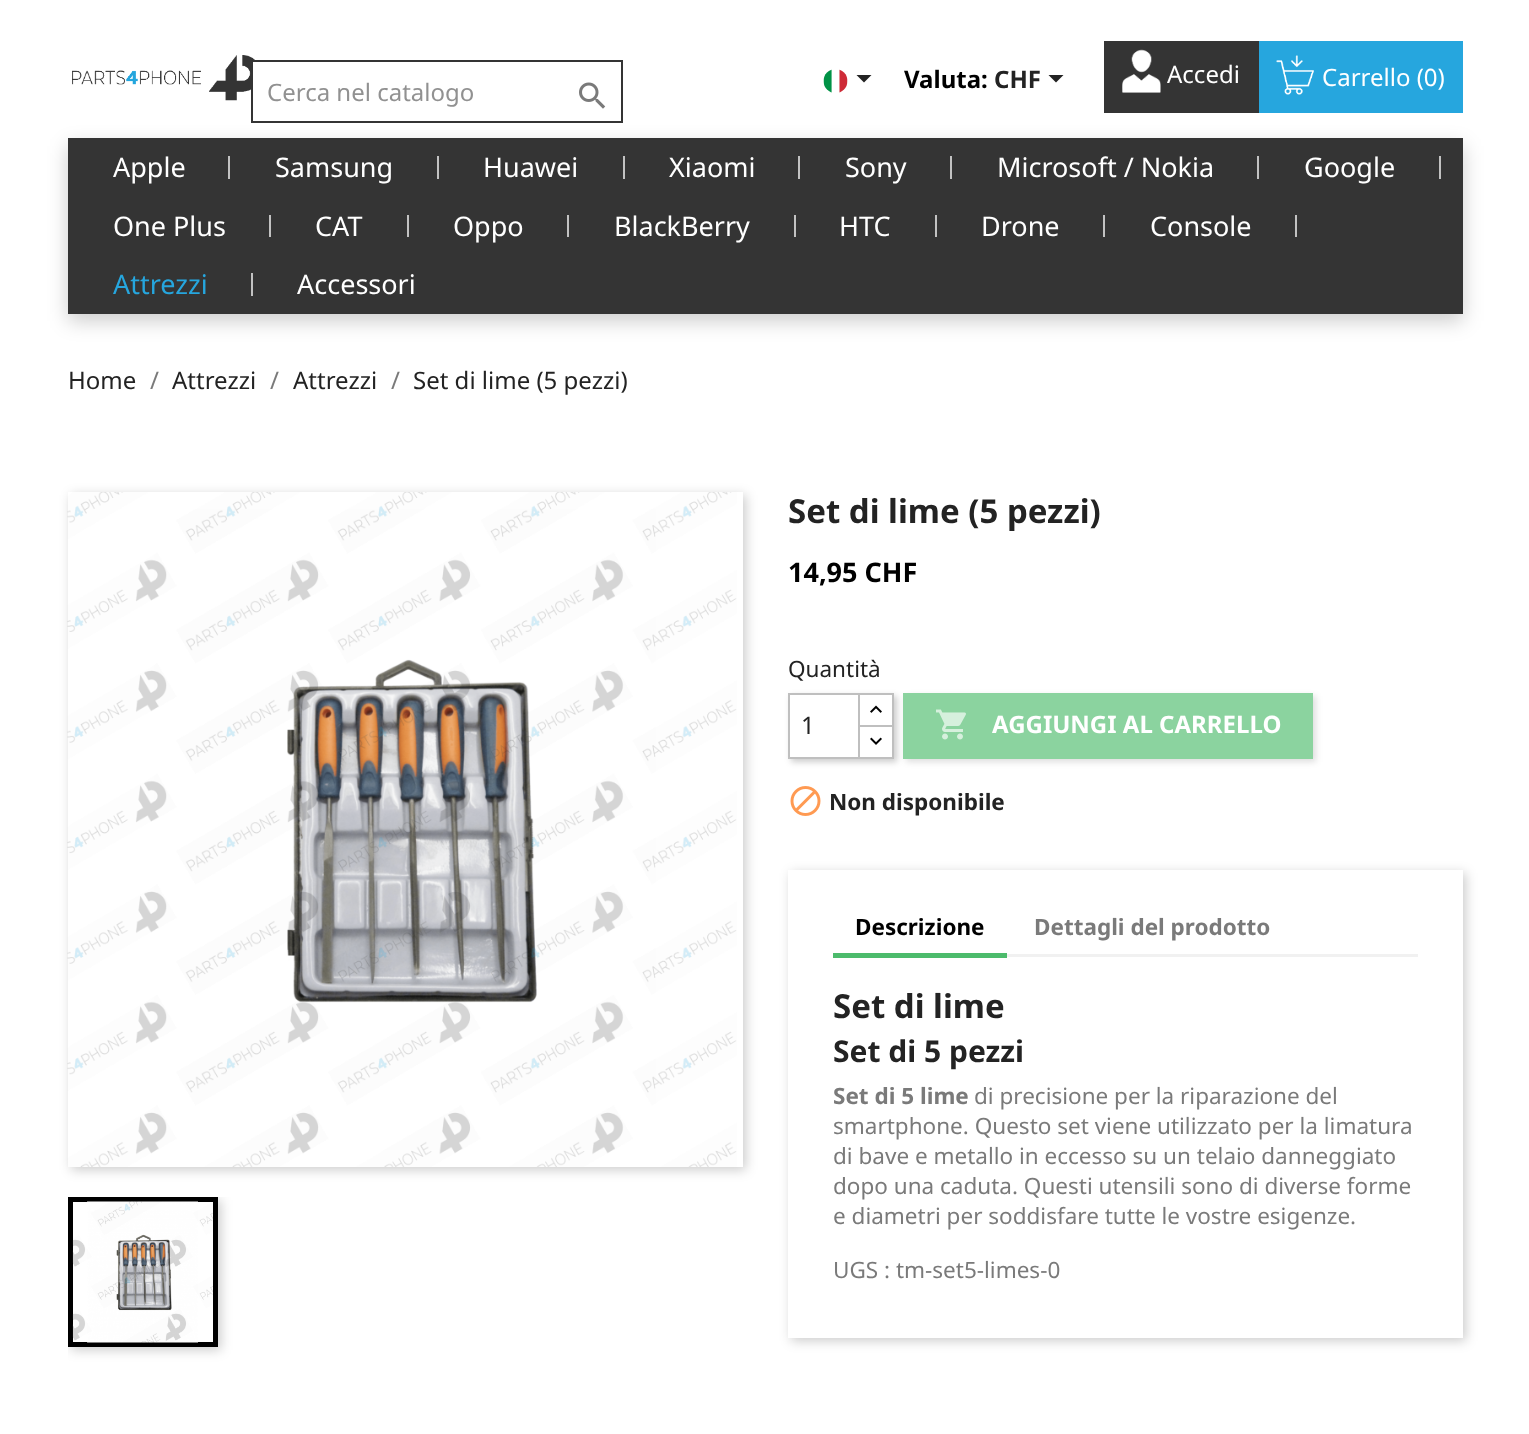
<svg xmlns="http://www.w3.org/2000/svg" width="1529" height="1434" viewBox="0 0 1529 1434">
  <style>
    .t1 { font: bold 24px Noto Sans; fill: #000; }
    .t2 { font: bold 24px Noto Sans; fill: #232323; }
    .t3 { font: 24px Noto Sans; fill: #fff; }
    .t4 { font: 24px Noto Sans; fill: #919191; }
    .t5 { font: 27px Noto Sans; fill: #fff; }
    .t6 { font: 27px Noto Sans; fill: #26a6de; }
    .t7 { font: 24px Noto Sans; fill: #232323; }
    .t8 { font: 24px Noto Sans; fill: #7a7a7a; }
    .t9 { font: bold 33px Noto Sans; fill: #232323; }
    .t10 { font: bold 27px Noto Sans; fill: #000; }
    .t11 { font: 22.5px Noto Sans; fill: #232323; }
    .t12 { font: bold 24px Noto Sans; fill: #fff; }
    .t13 { font: bold 22.5px Noto Sans; fill: #232323; }
    .t14 { font: bold 22.5px Noto Sans; fill: #000; }
    .t15 { font: bold 22.5px Noto Sans; fill: #7a7a7a; }
    .t16 { font: bold 30px Noto Sans; fill: #232323; }
    .t17 { font: 22.5px Noto Sans; fill: #7a7a7a; }
  </style>
  <defs>
    <clipPath id="clip1"><rect x="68" y="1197" width="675" height="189"/></clipPath>
    <clipPath id="clip2"><path d="M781 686H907V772H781ZM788 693H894V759H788Z" clip-rule="evenodd"/></clipPath>
  </defs>
  <rect width="100%" height="100%" fill="#fff"/>
  <image x="72" y="55" width="183" height="46" href="images/1.png"/>
  <image x="823" y="69" width="25" height="24" href="images/2.png"/>
  <path d="M856.5 75H871.5L864 82.5Z" fill="#232323"/>
  <text x="904" y="88" class="t1">Valuta:</text>
  <text x="994" y="88" class="t2">CHF</text>
  <path d="M1048.5 75H1063.5L1056 82.5Z" fill="#232323"/>
  <rect x="1104" y="41" width="155" height="72" fill="#343434"/>
  <image x="1122" y="49" width="39" height="44" href="images/3.png"/>
  <text x="1167" y="83" class="t3">Accedi</text>
  <rect x="1259" y="41" width="204" height="72" fill="#26a6de"/>
  <image x="1276" y="55" width="38" height="40" href="images/4.png"/>
  <text x="1322" y="86" class="t3">Carrello (0)</text>
  <rect x="253" y="62" width="2" height="27" fill="#fff"/>
  <rect x="252" y="61" width="370" height="61" fill="none" stroke="#343434" stroke-width="2"/>
  <text x="267" y="101" class="t4">Cerca nel catalogo</text>
  <image x="579" y="82" width="27" height="27" href="images/5.png"/>
  <rect x="68" y="146" width="1395" height="175" fill="#00000033" filter="blur(10px)"/>
  <rect x="68" y="138" width="1395" height="176" fill="#343434"/>
  <text x="113" y="177" class="t5">Apple</text>
  <rect x="228" y="156" width="2" height="23" fill="#c2c2c2"/>
  <text x="275" y="177" class="t5">Samsung</text>
  <rect x="437" y="156" width="2" height="23" fill="#c2c2c2"/>
  <text x="483" y="177" class="t5">Huawei</text>
  <rect x="623" y="156" width="2" height="23" fill="#c2c2c2"/>
  <text x="669" y="177" class="t5">Xiaomi</text>
  <rect x="798" y="156" width="2" height="23" fill="#c2c2c2"/>
  <text x="845" y="177" class="t5">Sony</text>
  <rect x="950" y="156" width="2" height="23" fill="#c2c2c2"/>
  <text x="997" y="177" class="t5">Microsoft / Nokia</text>
  <rect x="1257" y="156" width="2" height="23" fill="#c2c2c2"/>
  <text x="1304" y="177" class="t5">Google</text>
  <rect x="1439" y="156" width="2" height="23" fill="#c2c2c2"/>
  <text x="113" y="236" class="t5">One Plus</text>
  <rect x="269" y="215" width="2" height="22" fill="#c2c2c2"/>
  <text x="315" y="236" class="t5">CAT</text>
  <rect x="407" y="215" width="2" height="22" fill="#c2c2c2"/>
  <text x="453" y="236" class="t5">Oppo</text>
  <rect x="567" y="215" width="2" height="22" fill="#c2c2c2"/>
  <text x="614" y="236" class="t5">BlackBerry</text>
  <rect x="794" y="215" width="2" height="22" fill="#c2c2c2"/>
  <text x="839" y="236" class="t5">HTC</text>
  <rect x="935" y="215" width="2" height="22" fill="#c2c2c2"/>
  <text x="981" y="236" class="t5">Drone</text>
  <rect x="1103" y="215" width="2" height="22" fill="#c2c2c2"/>
  <text x="1150" y="236" class="t5">Console</text>
  <rect x="1295" y="215" width="2" height="22" fill="#c2c2c2"/>
  <text x="113" y="294" class="t6">Attrezzi</text>
  <rect x="251" y="273" width="2" height="23" fill="#c2c2c2"/>
  <text x="297" y="294" class="t5">Accessori</text>
  <text x="68" y="389" class="t7">Home</text>
  <text x="150" y="389" class="t8">/</text>
  <text x="172" y="389" class="t7">Attrezzi</text>
  <text x="270" y="389" class="t8">/</text>
  <text x="293" y="389" class="t7">Attrezzi</text>
  <text x="391" y="389" class="t8">/</text>
  <text x="413" y="389" class="t7">Set di lime (5 pezzi)</text>
  <rect x="71" y="495" width="675" height="675" fill="#00000033" filter="blur(6px)"/>
  <rect x="68" y="492" width="675" height="675" fill="#fff"/>
  <image x="67" y="492" width="670" height="675" href="images/6.png"/>
  <g clip-path="url(#clip1)">
    <rect x="71" y="1200" width="150" height="150" fill="#00000033" filter="blur(6px)"/>
  </g>
  <rect x="70.5" y="1199.5" width="145" height="145" fill="#fff" stroke="#000" stroke-width="5"/>
  <image x="72" y="1201" width="141" height="142" href="images/7.png"/>
  <text x="788" y="523" class="t9">Set di lime (5 pezzi)</text>
  <text x="788" y="582" class="t10">14,95 CHF</text>
  <text x="788" y="677" class="t11">Quantità</text>
  <g clip-path="url(#clip2)">
    <rect x="791" y="696" width="106" height="66" fill="#00000033" filter="blur(3px)"/>
  </g>
  <rect x="859" y="694" width="34" height="33" fill="none" stroke="#bfbfbf" stroke-width="2"/>
  <rect x="860" y="727" width="32" height="1" fill="#fff"/>
  <rect x="859" y="726" width="34" height="32" fill="none" stroke="#bfbfbf" stroke-width="2"/>
  <rect x="789" y="694" width="70" height="64" fill="none" stroke="#bfbfbf" stroke-width="2"/>
  <text x="801" y="734" class="t7">1</text>
  <image x="870" y="705" width="12" height="8" href="images/8.png"/>
  <image x="870" y="737" width="12" height="8" href="images/9.png"/>
  <rect x="906" y="696" width="410" height="66" fill="#00000021" filter="blur(3px)"/>
  <rect x="903" y="693" width="410" height="66" fill="#8bd39f"/>
  <image x="936" y="709" width="30" height="31" href="images/10.png"/>
  <text x="992" y="733" class="t12">AGGIUNGI AL CARRELLO</text>
  <image x="790" y="786" width="31" height="30" href="images/11.png"/>
  <text x="829" y="810" class="t13">Non disponibile</text>
  <rect x="791" y="873" width="675" height="468" fill="#00000033" filter="blur(6px)"/>
  <rect x="788" y="870" width="675" height="468" fill="#fff"/>
  <rect x="1007" y="954" width="411" height="3" fill="#f1f1f1"/>
  <rect x="833" y="953" width="174" height="5" fill="#4cbb6c"/>
  <text x="855" y="935" class="t14">Descrizione</text>
  <text x="1034" y="935" class="t15">Dettagli del prodotto</text>
  <text x="833" y="1018" class="t9">Set di lime</text>
  <text x="833" y="1062" class="t16">Set di 5 pezzi</text>
  <text x="833" y="1104" class="t15">Set di 5 lime</text>
  <text x="974" y="1104" class="t17">di precisione per la riparazione del</text>
  <text x="833" y="1134" class="t17">smartphone. Questo set viene utilizzato per la limatura</text>
  <text x="833" y="1164" class="t17">di bave e metallo in eccesso su un telaio danneggiato</text>
  <text x="833" y="1194" class="t17">dopo una caduta. Questi utensili sono di diverse forme</text>
  <text x="833" y="1224" class="t17">e diametri per soddisfare tutte le vostre esigenze.</text>
  <text x="833" y="1278" class="t17">UGS : tm-set5-limes-0</text>
</svg>
